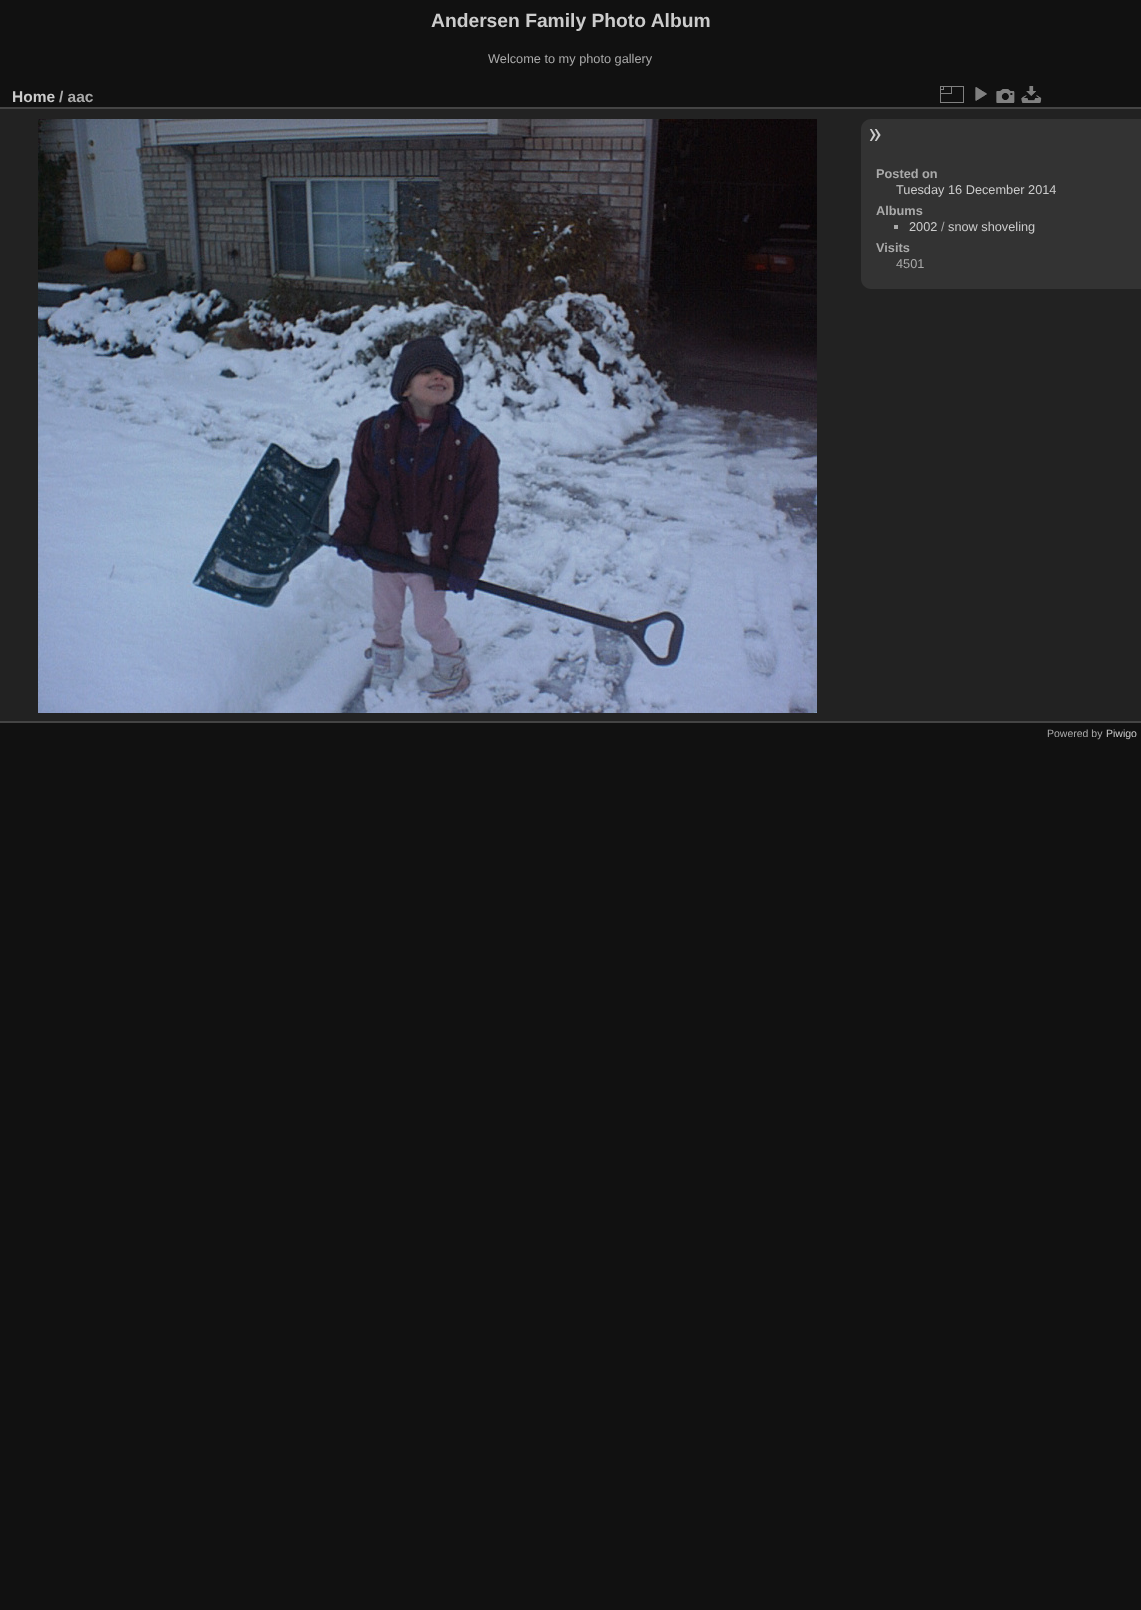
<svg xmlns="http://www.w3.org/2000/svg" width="1141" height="1610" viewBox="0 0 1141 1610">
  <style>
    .t1 { font: bold 19.25px Liberation Sans; fill: #ccc; }
    .t2 { font: 12.75px Liberation Sans; fill: #aaa; }
    .t3 { font: bold 15.5px Liberation Sans; fill: #ccc; }
    .t4 { font: bold 15.5px Liberation Sans; fill: #aaa; }
    .t5 { font: bold 12.75px Liberation Sans; fill: #aaa; }
    .t6 { font: 12.75px Liberation Sans; fill: #ccc; }
    .t7 { font: 10.5px Liberation Sans; fill: #aaa; }
    .t8 { font: 10.5px Liberation Sans; fill: #ccc; }
  </style>
  <rect width="100%" height="100%" fill="#111"/>
  <text x="431" y="27" class="t1">Andersen Family Photo Album</text>
  <text x="488" y="63" class="t2">Welcome to my photo gallery</text>
  <rect x="0" y="109" width="1141" height="612" fill="#222"/>
  <rect x="0" y="721" width="1141" height="2" fill="#444"/>
  <rect x="0" y="107" width="1141" height="2" fill="#444"/>
  <text x="12" y="102" class="t3">Home</text>
  <text x="59" y="102" class="t4">/ aac</text>
  <image x="940" y="86" width="24" height="17" href="images/1.png"/>
  <image x="975" y="87" width="12" height="14" href="images/2.png"/>
  <image x="996" y="89" width="19" height="14" href="images/3.png"/>
  <image x="1021" y="86" width="21" height="17" href="images/4.png"/>
  <image x="38" y="119" width="779" height="594" href="images/5.png"/>
  <path d="M871 119H1141V289H871C865.5 289 861 284.5 861 279V129C861 123.5 865.5 119 871 119Z" fill="#333"/>
  <image x="869" y="129" width="12" height="12" href="images/6.png"/>
  <text x="876" y="178" class="t5">Posted on</text>
  <text x="896" y="194" class="t6">Tuesday 16 December 2014</text>
  <text x="876" y="215" class="t5">Albums</text>
  <rect x="894" y="225" width="4" height="4" fill="#aaa"/>
  <text x="909" y="231" class="t6">2002</text>
  <text x="941" y="231" class="t2">/</text>
  <text x="948" y="231" class="t6">snow shoveling</text>
  <text x="876" y="252" class="t5">Visits</text>
  <text x="896" y="268" class="t2">4501</text>
  <text x="1047" y="737" class="t7">Powered by</text>
  <text x="1106" y="737" class="t8">Piwigo</text>
</svg>
